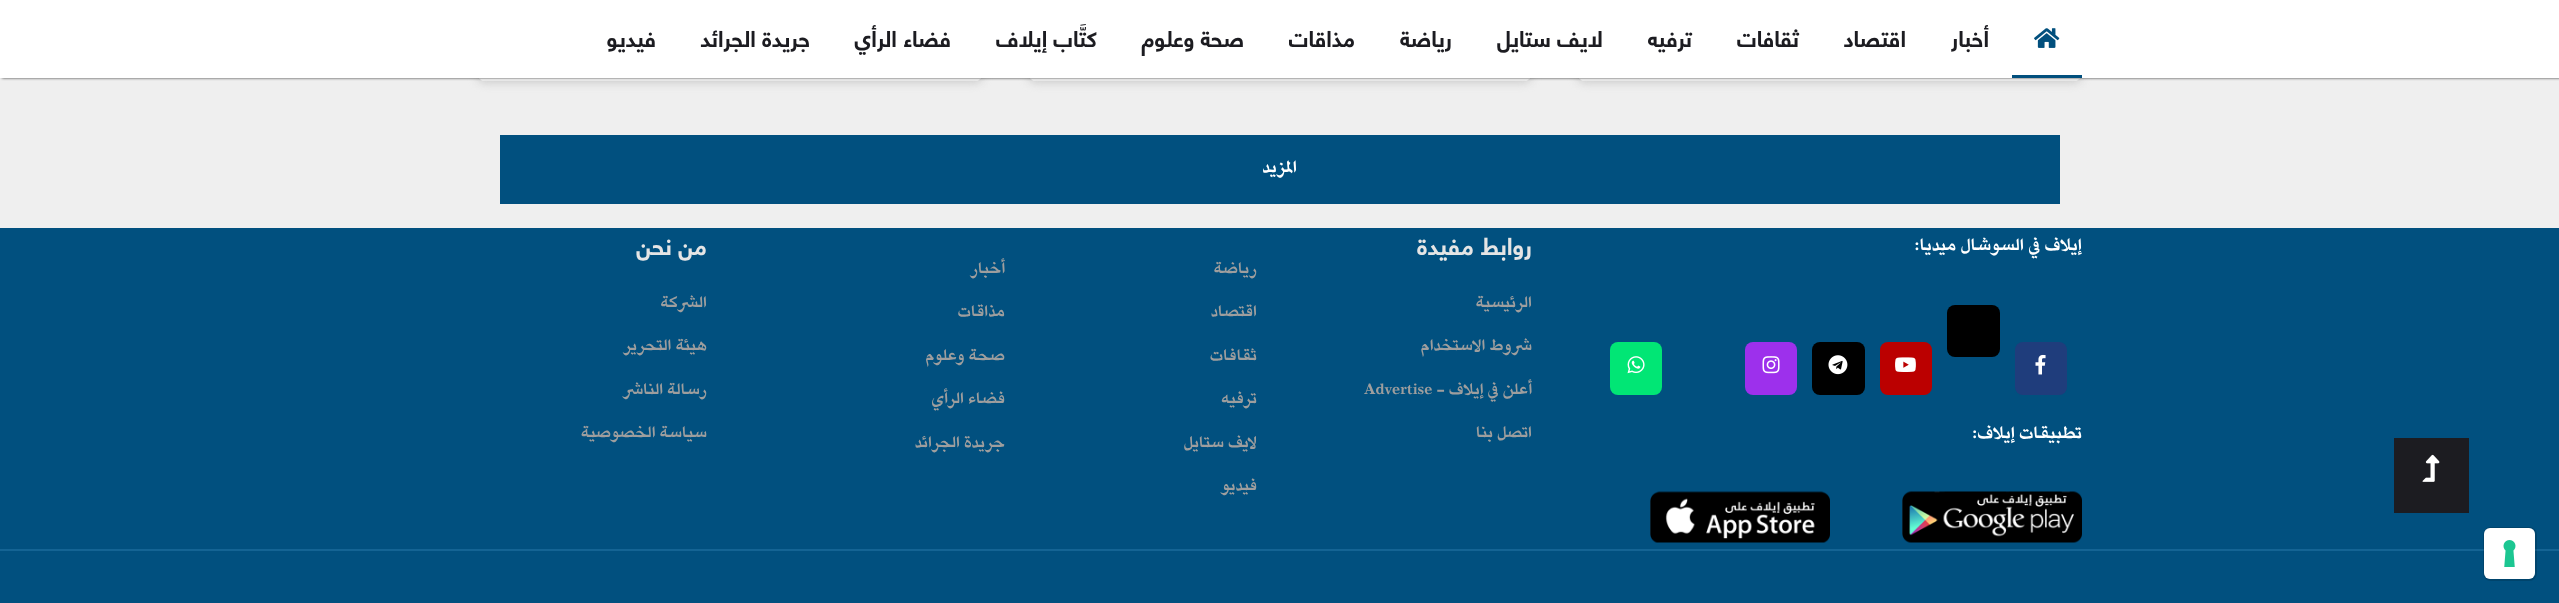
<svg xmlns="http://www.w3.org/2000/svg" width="2559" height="603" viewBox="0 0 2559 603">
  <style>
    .t1 { font: bold 22.5px 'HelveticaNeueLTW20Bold'; direction: rtl; fill: #1c1c21; }
    .t2 { font: bold 21px 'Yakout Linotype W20'; direction: rtl; fill: #fff; }
    .t3 { font: bold 24px 'HelveticaNeueLTW20Bold'; direction: rtl; fill: #e5e5e5; }
    .t4 { font: bold 19.5px 'Yakout Linotype W20'; direction: rtl; fill: #9e9e9e; }
    .t5 { font: bold 19.5px 'Yakout Linotype W20'; fill: #9e9e9e; }
  </style>
  <defs>
    <clipPath id="clip1"><rect x="1577" y="-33" width="505" height="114" rx="8"/></clipPath>
    <clipPath id="clip2"><rect x="1028" y="-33" width="504" height="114" rx="8"/></clipPath>
    <clipPath id="clip3"><rect x="477" y="-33" width="506" height="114" rx="8"/></clipPath>
  </defs>
  <rect width="100%" height="100%" fill="#efefef"/>
  <rect x="1577" y="-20" width="505" height="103" rx="8" fill="#ccc" filter="blur(4px)"/>
  <rect x="1577" y="-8" width="505" height="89" rx="8" fill="#fff"/>
  <g clip-path="url(#clip1)">
    <rect x="1577" y="80" width="505" height="1" fill="#eee"/>
  </g>
  <rect x="1028" y="-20" width="504" height="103" rx="8" fill="#ccc" filter="blur(4px)"/>
  <rect x="1028" y="-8" width="504" height="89" rx="8" fill="#fff"/>
  <g clip-path="url(#clip2)">
    <rect x="1028" y="80" width="504" height="1" fill="#eee"/>
  </g>
  <rect x="477" y="-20" width="506" height="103" rx="8" fill="#ccc" filter="blur(4px)"/>
  <rect x="477" y="-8" width="506" height="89" rx="8" fill="#fff"/>
  <g clip-path="url(#clip3)">
    <rect x="477" y="80" width="506" height="1" fill="#eee"/>
  </g>
  <rect x="2" y="0" width="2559" height="78" fill="#333" filter="blur(1.5px)"/>
  <rect x="0" y="0" width="2559" height="78" fill="#fff"/>
  <rect x="2012" y="75" width="70" height="3" fill="#014f7d"/>
  <image x="2034" y="28" width="26" height="20" href="images/1.png"/>
  <text x="1989" y="47" class="t1">أخبار</text>
  <text x="1906" y="47" class="t1">اقتصاد</text>
  <text x="1799" y="47" class="t1">ثقافات</text>
  <text x="1692" y="47" class="t1">ترفيه</text>
  <text x="1603" y="47" class="t1">لايف ستايل</text>
  <text x="1452" y="47" class="t1">رياضة</text>
  <text x="1355" y="47" class="t1">مذاقات</text>
  <text x="1244" y="47" class="t1">صحة وعلوم</text>
  <text x="1097" y="47" class="t1">كتَّاب إيلاف</text>
  <text x="951" y="47" class="t1">فضاء الرأي</text>
  <text x="810" y="47" class="t1">جريدة الجرائد</text>
  <text x="656" y="47" class="t1">فيديو</text>
  <rect x="500" y="135" width="1560" height="69" fill="#01507f"/>
  <text x="1297" y="172" class="t2">المزيد</text>
  <rect x="0" y="228" width="2559" height="375" fill="#01507f"/>
  <rect x="2394" y="438" width="75" height="75" fill="#1c1c21"/>
  <image x="2422" y="454" width="18" height="28" href="images/2.png"/>
  <text x="2082" y="250" class="t2">إيلاف في السوشال ميديا:</text>
  <rect x="1947" y="305" width="53" height="52" rx="8" fill="#000"/>
  <rect x="2015" y="342" width="52" height="53" rx="8" fill="#1f3d7c"/>
  <image x="2035" y="354" width="11" height="21" href="images/3.png"/>
  <rect x="1880" y="342" width="52" height="53" rx="8" fill="#b00"/>
  <image x="1895" y="357" width="21" height="15" href="images/4.png"/>
  <rect x="1812" y="342" width="53" height="53" rx="8" fill="#000"/>
  <image x="1828" y="355" width="20" height="20" href="images/5.png"/>
  <rect x="1745" y="342" width="52" height="53" rx="8" fill="#9d30ec"/>
  <image x="1762" y="356" width="18" height="18" href="images/6.png"/>
  <rect x="1610" y="342" width="52" height="53" rx="8" fill="#01e675"/>
  <image x="1627" y="356" width="18" height="18" href="images/7.png"/>
  <text x="2082" y="438" class="t2">تطبيقات إيلاف:</text>
  <image x="1902" y="491" width="180" height="52" href="images/8.png"/>
  <image x="1650" y="491" width="180" height="52" href="images/9.png"/>
  <text x="1532" y="255" class="t3">روابط مفيدة</text>
  <text x="1532" y="307" class="t4">الرئيسية</text>
  <text x="1532" y="350" class="t4">شروط الاستخدام</text>
  <text x="1532" y="394" class="t4">أعلن في إيلاف -</text>
  <text x="1364" y="394" class="t5">Advertise</text>
  <text x="1532" y="437" class="t4">اتصل بنا</text>
  <text x="1257" y="273" class="t4">رياضة</text>
  <text x="1257" y="316" class="t4">اقتصاد</text>
  <text x="1257" y="360" class="t4">ثقافات</text>
  <text x="1257" y="403" class="t4">ترفيه</text>
  <text x="1257" y="447" class="t4">لايف ستايل</text>
  <text x="1257" y="490" class="t4">فيديو</text>
  <text x="1005" y="273" class="t4">أخبار</text>
  <text x="1005" y="316" class="t4">مذاقات</text>
  <text x="1005" y="360" class="t4">صحة وعلوم</text>
  <text x="1005" y="403" class="t4">فضاء الرأي</text>
  <text x="1005" y="447" class="t4">جريدة الجرائد</text>
  <text x="707" y="255" class="t3">من نحن</text>
  <text x="707" y="307" class="t4">الشركة</text>
  <text x="707" y="350" class="t4">هيئة التحرير</text>
  <text x="707" y="394" class="t4">رسالة الناشر</text>
  <text x="707" y="437" class="t4">سياسة الخصوصية</text>
  <rect x="0" y="549" width="2559" height="2" fill="#146494"/>
  <rect x="2484" y="528" width="52" height="52" rx="7" fill="none" stroke="#00000026" stroke-width="2"/>
  <rect x="2484" y="528" width="51" height="51" rx="6" fill="#fff"/>
  <image x="2503" y="540" width="13" height="27" href="images/10.png"/>
</svg>
